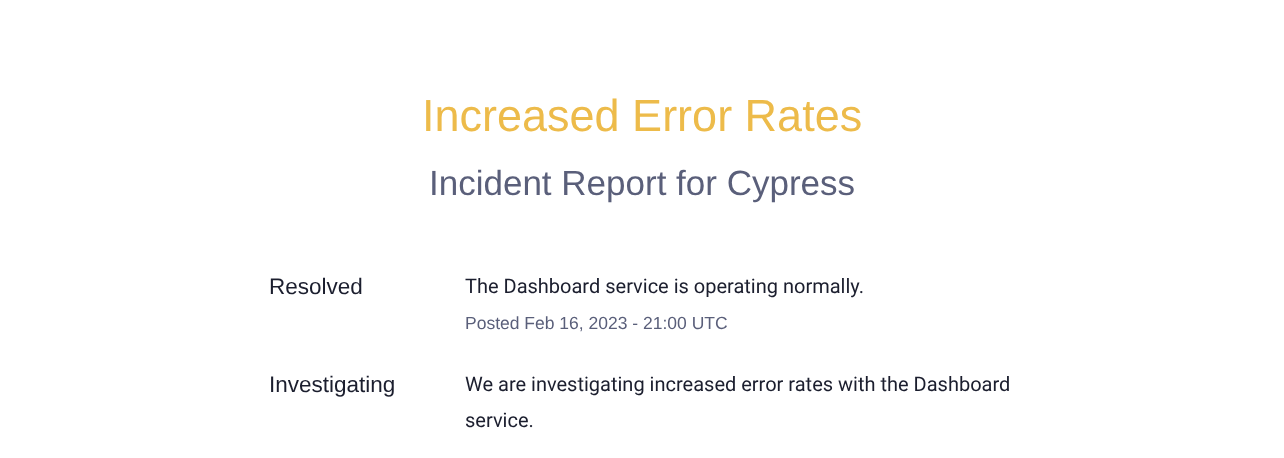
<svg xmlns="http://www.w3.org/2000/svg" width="1284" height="458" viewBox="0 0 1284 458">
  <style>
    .t1 { font: 45px Liberation Sans; fill: #edbb4a; }
    .t2 { font: 35px Liberation Sans; fill: #5a5f7a; }
    .t3 { font: 22.5px Liberation Sans; fill: #1b1e2e; }
    .t4 { font: 20px Roboto; fill: #1b1e2e; }
    .t5 { font: 17.5px Liberation Sans; fill: #5a5f7a; }
  </style>
  <rect width="100%" height="100%" fill="#fff"/>
  <text x="422" y="131" class="t1">Increased Error Rates</text>
  <text x="429" y="195" class="t2">Incident Report for Cypress</text>
  <text x="269" y="294" class="t3">Resolved</text>
  <text x="465" y="293" class="t4">The Dashboard service is operating normally.</text>
  <text x="465" y="329" class="t5">Posted Feb 16, 2023 - 21:00 UTC</text>
  <text x="269" y="392" class="t3">Investigating</text>
  <text x="465" y="391" class="t4">We are investigating increased error rates with the Dashboard</text>
  <text x="465" y="427" class="t4">service.</text>
</svg>
